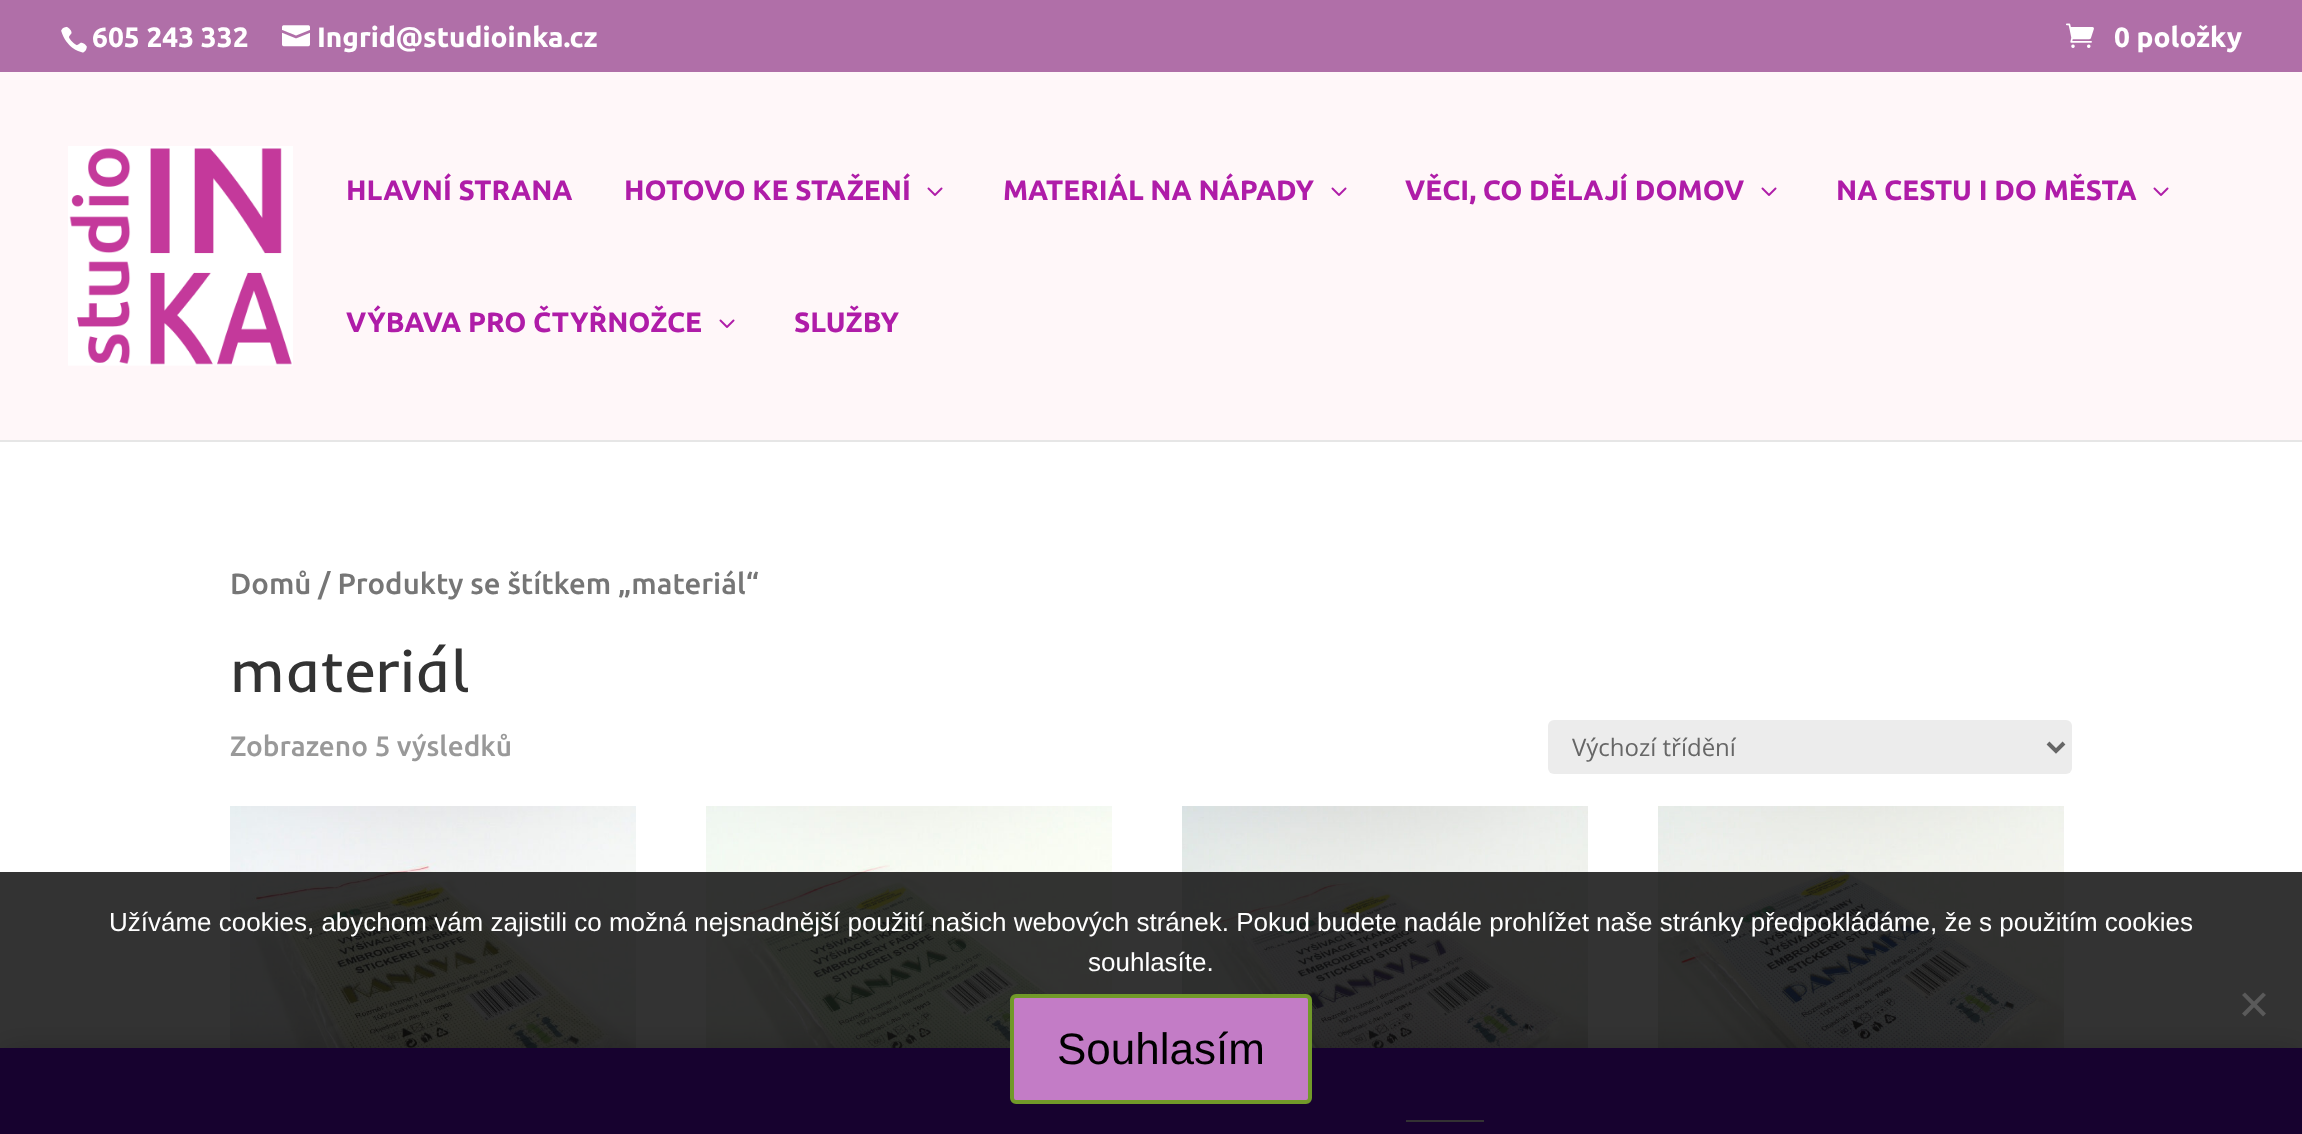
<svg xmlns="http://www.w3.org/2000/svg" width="2302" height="1134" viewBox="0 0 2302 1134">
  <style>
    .t1 { font: bold 28px Ubuntu; fill: #fff; }
    .t2 { font: bold 28px Ubuntu; fill: #af1ca8; }
    .t3 { font: 500 29.4px Ubuntu; fill: #767676; }
    .t4 { font: 60px Inder; fill: #333; }
    .t5 { font: 500 28px Ubuntu; fill: #999; }
    .t6 { font: 24px Open Sans; fill: #666; }
    .t7 { font: 26px Liberation Sans; fill: #fff; }
    .t8 { font: 44px Liberation Sans; fill: #000; }
  </style>
  <rect width="100%" height="100%" fill="#fff"/>
  <rect x="0" y="0" width="2302" height="72" fill="#b06fa8"/>
  <image x="61" y="26" width="26" height="27" href="images/1.png"/>
  <text x="92" y="47" class="t1">605 243 332</text>
  <image x="282" y="25" width="28" height="22" href="images/2.png"/>
  <text x="317" y="47" class="t1">Ingrid@studioinka.cz</text>
  <image x="2066" y="23" width="28" height="25" href="images/3.png"/>
  <text x="2114" y="47" class="t1">0 položky</text>
  <rect x="0" y="440" width="2302" height="2" fill="#e6e6e6"/>
  <rect x="0" y="72" width="2302" height="368" fill="#fff7f9"/>
  <image x="68" y="146" width="225" height="220" href="images/4.png"/>
  <text x="346" y="200" class="t2">HLAVNÍ STRANA</text>
  <text x="624" y="200" class="t2">HOTOVO KE STAŽENÍ</text>
  <image x="927" y="187" width="16" height="9" href="images/5.png"/>
  <text x="1003" y="200" class="t2">MATERIÁL NA NÁPADY</text>
  <image x="1331" y="187" width="16" height="9" href="images/5.png"/>
  <text x="1405" y="200" class="t2">VĚCI, CO DĚLAJÍ DOMOV</text>
  <image x="1761" y="187" width="16" height="9" href="images/5.png"/>
  <text x="1836" y="200" class="t2">NA CESTU I DO MĚSTA</text>
  <image x="2153" y="187" width="16" height="9" href="images/5.png"/>
  <text x="346" y="332" class="t2">VÝBAVA PRO ČTYŘNOŽCE</text>
  <image x="719" y="319" width="16" height="9" href="images/5.png"/>
  <text x="794" y="332" class="t2">SLUŽBY</text>
  <text x="230" y="594" class="t3">Domů / Produkty se štítkem „materiál“</text>
  <text x="230" y="692" class="t4">materiál</text>
  <text x="230" y="756" class="t5">Zobrazeno 5 výsledků</text>
  <rect x="1548" y="720" width="524" height="54" rx="6" fill="#ececec"/>
  <path d="M2048 743L2056 751L2064 743" fill="none" stroke="#666" stroke-width="4"/>
  <text x="1572" y="756" class="t6">Výchozí třídění</text>
  <image x="230" y="806" width="406" height="242" href="images/6.png"/>
  <image x="706" y="806" width="406" height="242" href="images/7.png"/>
  <image x="1182" y="806" width="406" height="242" href="images/8.png"/>
  <image x="1658" y="806" width="406" height="242" href="images/9.png"/>
  <rect x="0" y="1050" width="2302" height="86" fill="#00000033" filter="blur(16px)"/>
  <rect x="0" y="1048" width="2302" height="86" fill="#720eec"/>
  <rect x="1406" y="1120" width="78" height="2" fill="#fcfbfe"/>
  <rect x="0" y="872" width="2302" height="262" fill="#000000cc"/>
  <text x="109" y="931" class="t7">Užíváme cookies, abychom vám zajistili co možná nejsnadnější použití našich webových stránek. Pokud budete nadále prohlížet naše stránky předpokládáme, že s použitím cookies</text>
  <text x="1088" y="971" class="t7">souhlasíte.</text>
  <path d="M2263 992.5L2266 995L2245 1016.5L2242 1013.5Z" fill="#5a5a5a"/>
  <path d="M2242 995L2245 992.5L2266 1013.5L2263 1016.5Z" fill="#5a5a5a"/>
  <rect x="1012" y="996" width="298" height="106" rx="4" fill="#c37cc6" stroke="#719929" stroke-width="4"/>
  <text x="1057" y="1064" class="t8">Souhlasím</text>
</svg>
